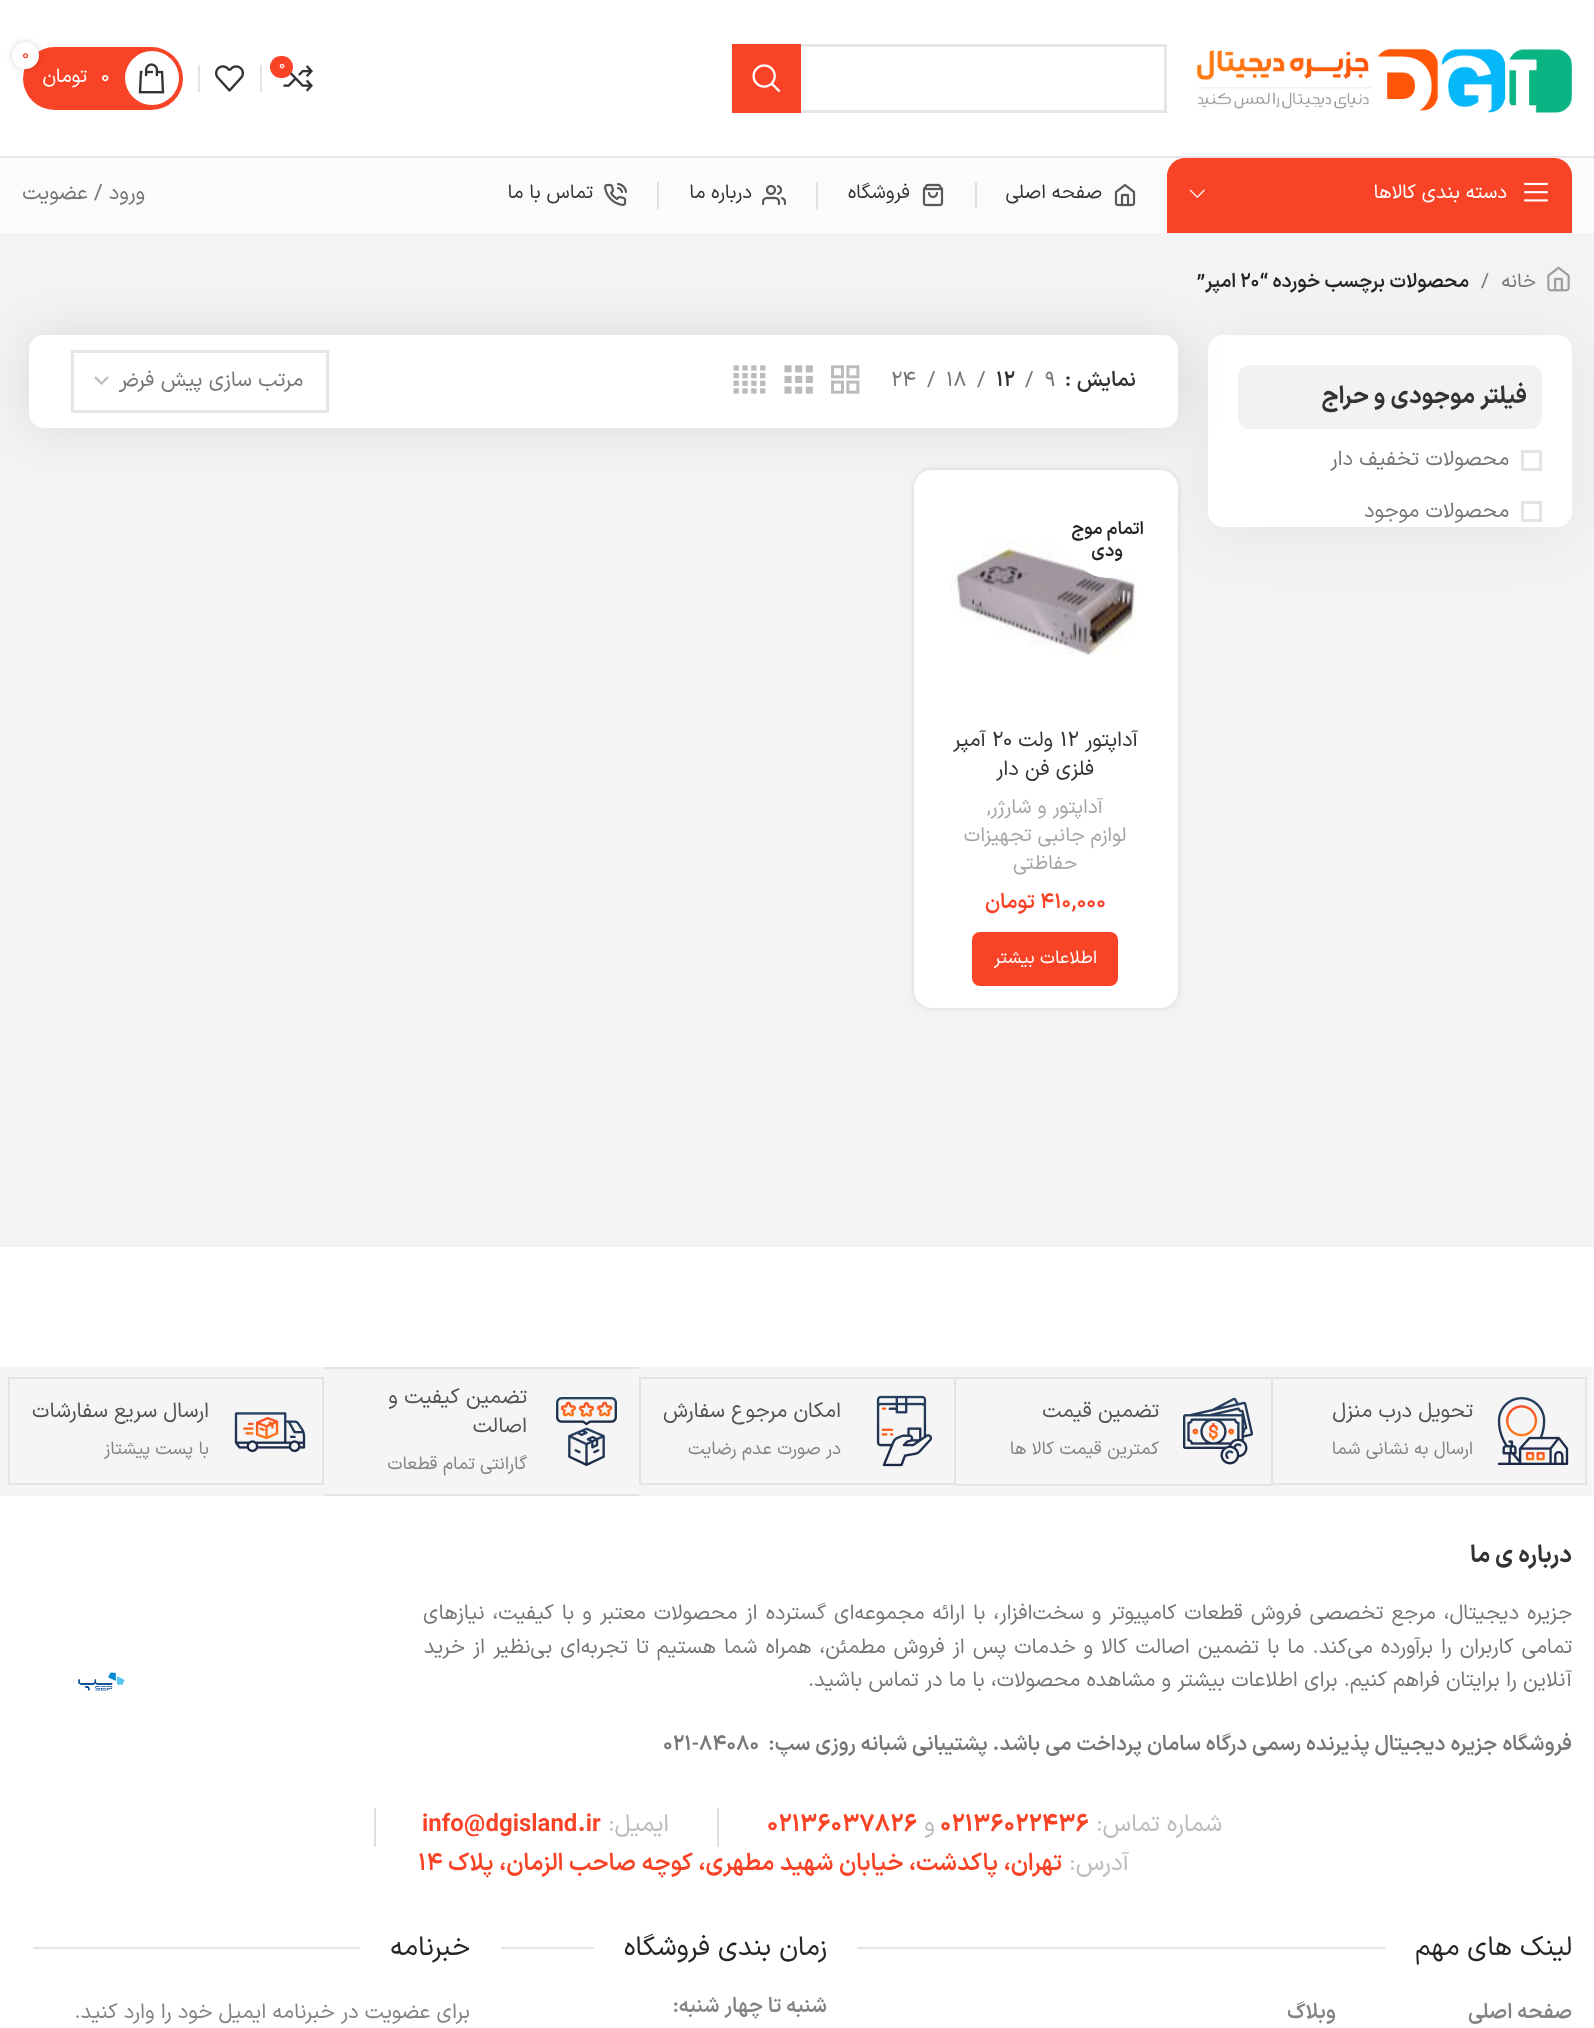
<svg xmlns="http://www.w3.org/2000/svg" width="1594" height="2028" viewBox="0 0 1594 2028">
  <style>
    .t1 { font: 14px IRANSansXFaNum; fill: #fff; }
    .t2 { font: 16px IRANSansXFaNum; fill: #f94327; }
    .t3 { font: 19.5px IRANSansXFaNum; fill: #fff; }
    .t4 { font: 19.5px IRANSansXFaNum; direction: rtl; fill: #fff; }
    .t5 { font: 19.5px IRANSansXFaNum; direction: rtl; fill: #333; }
    .t6 { font: 21px IRANSansXFaNum; direction: rtl; fill: #767676; }
    .t7 { font: 19.5px IRANSansXFaNum; direction: rtl; fill: #767676; }
    .t8 { font: 19.5px IRANSansXFaNum; fill: #767676; }
    .t9 { font: 600 19.5px IRANSansXFaNum; direction: rtl; fill: #242424; }
    .t10 { font: 600 19.5px IRANSansXFaNum; fill: #242424; }
    .t11 { font: bold 24px IRANSansXFaNum; direction: rtl; fill: #333; }
    .t12 { font: 600 21px IRANSansXFaNum; direction: rtl; fill: #333; }
    .t13 { font: 600 21px IRANSansXFaNum; fill: #333; }
    .t14 { font: 21px IRANSansXFaNum; fill: #767676; }
    .t15 { font: 600 18px IRANSansXFaNum; direction: rtl; fill: #242424; }
    .t16 { font: 21px IRANSansXFaNum; direction: rtl; fill: #333; }
    .t17 { font: 21px IRANSansXFaNum; fill: #333; }
    .t18 { font: 20px IRANSansXFaNum; direction: rtl; fill: #a5a5a5; }
    .t19 { font: 20px IRANSansXFaNum; fill: #a5a5a5; }
    .t20 { font: 600 21px IRANSansXFaNum; fill: #f94327; }
    .t21 { font: 600 21px IRANSansXFaNum; direction: rtl; fill: #f94327; }
    .t22 { font: 18px IRANSansXFaNum; direction: rtl; fill: #fff; }
    .t23 { font: 21px IRANSansXFaNum; direction: rtl; fill: #525252; }
    .t24 { font: 18px IRANSansXFaNum; direction: rtl; fill: #838383; }
    .t25 { font: 600 21px IRANSansXFaNum; direction: rtl; fill: #767676; }
    .t26 { font: 600 21px IRANSansXFaNum; fill: #767676; }
    .t27 { font: 24px IRANSansXFaNum; direction: rtl; fill: #bcbcbc; }
    .t28 { font: bold 24px IRANSansXFaNum; fill: #f94327; }
    .t29 { font: 600 24px IRANSansXFaNum; direction: rtl; fill: #f94327; }
    .t30 { font: 600 24px IRANSansXFaNum; fill: #f94327; }
    .t31 { font: 27px IRANSansXFaNum; direction: rtl; fill: #242424; }
    .t32 { font: 600 21px IRANSansXFaNum; direction: rtl; fill: #838383; }
    .t33 { font: 21px IRANSansXFaNum; direction: rtl; fill: #838383; }
  </style>
  <defs>
    <clipPath id="clip1"><rect x="119" y="365" width="184" height="34"/></clipPath>
  </defs>
  <rect width="100%" height="100%" fill="#fff"/>
  <rect x="0" y="156" width="1594" height="2" fill="#e6e6e6"/>
  <image x="1197" y="48" width="375" height="65" href="images/1.png"/>
  <rect x="733.5" y="45.5" width="432" height="66" fill="none" stroke="#e6e6e6" stroke-width="3"/>
  <rect x="732" y="44" width="69" height="69" fill="#f94327"/>
  <image x="752" y="64" width="29" height="29" href="images/2.png"/>
  <image x="283" y="65" width="30" height="27" href="images/3.png"/>
  <rect x="270" y="56" width="23" height="22" rx="11" fill="#f94327"/>
  <text x="279" y="69" class="t1">0</text>
  <rect x="260" y="65" width="2" height="27" fill="#e4e4e4"/>
  <image x="215" y="65" width="29" height="27" href="images/4.png"/>
  <rect x="198" y="65" width="2" height="27" fill="#e4e4e4"/>
  <rect x="23" y="47" width="160" height="63" rx="31.5" fill="#f94327"/>
  <circle cx="152" cy="78" r="27" fill="#fff"/>
  <rect x="12" y="42" width="27" height="27" rx="13.5" fill="#0000002b" filter="blur(3px)"/>
  <circle cx="25.5" cy="55.5" r="13.5" fill="#fff"/>
  <text x="22" y="59" class="t2">0</text>
  <image x="138" y="63" width="27" height="31" href="images/5.png"/>
  <text x="101" y="82" class="t3">۰</text>
  <text x="87" y="82" class="t4">تومان</text>
  <rect x="0" y="158" width="1594" height="75" fill="#fbfbfb"/>
  <path d="M1185 158H1554C1564 158 1572 166 1572 176V233H1167V176C1167 166 1175 158 1185 158Z" fill="#f94327"/>
  <image x="1524" y="182" width="24" height="20" href="images/6.png"/>
  <text x="1507" y="198" class="t4">دسته بندی کالاها</text>
  <image x="1189" y="189" width="16" height="9" href="images/7.png"/>
  <image x="1114" y="184" width="22" height="23" href="images/8.png"/>
  <text x="1102" y="198" class="t5">صفحه اصلی</text>
  <rect x="975" y="182" width="2" height="27" fill="#e0e0e0"/>
  <image x="922" y="183" width="22" height="24" href="images/9.png"/>
  <text x="910" y="198" class="t5">فروشگاه</text>
  <rect x="816" y="182" width="2" height="27" fill="#e0e0e0"/>
  <image x="762" y="184" width="24" height="21" href="images/10.png"/>
  <text x="752" y="198" class="t5">درباره ما</text>
  <rect x="657" y="182" width="2" height="27" fill="#e0e0e0"/>
  <image x="604" y="183" width="23" height="23" href="images/11.png"/>
  <text x="593" y="198" class="t5">تماس با ما</text>
  <text x="145" y="199" class="t6">ورود / عضویت</text>
  <rect x="0" y="233" width="1594" height="1014" fill="#f3f3f3"/>
  <image x="1547" y="266" width="23" height="26" href="images/12.png"/>
  <text x="1536" y="287" class="t7">خانه</text>
  <text x="1481" y="287" class="t8">/</text>
  <text x="1469" y="287" class="t9">محصولات برچسب خورده</text>
  <text x="1240" y="287" class="t10">20“</text>
  <text x="1236" y="287" class="t9">امپر”</text>
  <rect x="1208" y="341" width="364" height="192" rx="15" fill="#0000000f" filter="blur(30px)"/>
  <rect x="1208" y="335" width="364" height="192" rx="15" fill="#fff"/>
  <rect x="1238" y="365" width="304" height="64" rx="12" fill="#f2f2f2"/>
  <text x="1527" y="403" class="t11">فیلتر موجودی و حراج</text>
  <rect x="1522.5" y="451.5" width="18" height="18" fill="none" stroke="#e4e4e4" stroke-width="3"/>
  <text x="1509" y="465" class="t6">محصولات تخفیف دار</text>
  <rect x="1522.5" y="502.5" width="18" height="18" fill="none" stroke="#e4e4e4" stroke-width="3"/>
  <text x="1509" y="517" class="t6">محصولات موجود</text>
  <rect x="29" y="335" width="1149" height="93" rx="15" fill="#0000001a" filter="blur(22.5px)"/>
  <rect x="29" y="335" width="1149" height="93" rx="15" fill="#fff"/>
  <text x="1136" y="386" class="t12">نمایش</text>
  <text x="1065" y="386" class="t13">:</text>
  <text x="1045" y="386" class="t14">9</text>
  <text x="1025" y="386" class="t14">/</text>
  <text x="996" y="386" class="t13">12</text>
  <text x="977" y="386" class="t14">/</text>
  <text x="946" y="386" class="t14">18</text>
  <text x="927" y="386" class="t14">/</text>
  <text x="891" y="386" class="t14">24</text>
  <image x="831" y="365" width="29" height="29" href="images/13.png"/>
  <image x="784" y="365" width="29" height="29" href="images/14.png"/>
  <image x="733" y="365" width="33" height="29" href="images/15.png"/>
  <path d="M95 377L101.5 383.5L108 377" fill="none" stroke="#bbb" stroke-width="2.2"/>
  <rect x="72.5" y="351.5" width="255" height="60" fill="none" stroke="#e6e6e6" stroke-width="3"/>
  <g clip-path="url(#clip1)">
    <text x="303" y="386" class="t6">مرتب سازی پیش فرض</text>
  </g>
  <rect x="914" y="470" width="264" height="538" rx="18" fill="#0000001f" filter="blur(3px)"/>
  <rect x="914" y="470" width="264" height="538" rx="18" fill="#fff"/>
  <image x="951" y="539" width="186" height="117" href="images/16.png"/>
  <circle cx="1107.5" cy="540.5" r="37.5" fill="#fff"/>
  <text x="1144" y="534" class="t15">اتمام موج</text>
  <text x="1123" y="556" class="t15">ودی</text>
  <text x="1138" y="746" class="t16">آداپتور</text>
  <text x="1060" y="746" class="t17">۱۲</text>
  <text x="1053" y="746" class="t16">ولت</text>
  <text x="992" y="746" class="t17">۲۰</text>
  <text x="986" y="746" class="t16">آمپر</text>
  <text x="1094" y="775" class="t16">فلزی فن دار</text>
  <text x="1103" y="813" class="t18">آداپتور و شارژر</text>
  <text x="987" y="813" class="t19">,</text>
  <text x="1126" y="841" class="t18">لوازم جانبی تجهیزات</text>
  <text x="1077" y="869" class="t18">حفاظتی</text>
  <text x="1040" y="908" class="t20">۴۱۰,۰۰۰</text>
  <text x="1035" y="908" class="t21">تومان</text>
  <rect x="972" y="932" width="146" height="54" rx="8" fill="#f94327"/>
  <text x="1097" y="963" class="t22">اطلاعات بیشتر</text>
  <rect x="0" y="1367" width="1594" height="129" fill="#f5f5f5"/>
  <rect x="1272" y="1378" width="314" height="106" fill="none" stroke="#e8e2e2" stroke-width="2"/>
  <image x="1497" y="1397" width="72" height="68" href="images/17.png"/>
  <text x="1473" y="1417" class="t23">تحویل درب منزل</text>
  <text x="1473" y="1454" class="t24">ارسال به نشانی شما</text>
  <rect x="956" y="1377" width="315" height="2" fill="#e8e2e2"/>
  <rect x="956" y="1484" width="315" height="2" fill="#e8e2e2"/>
  <image x="1183" y="1397" width="71" height="68" href="images/18.png"/>
  <text x="1159" y="1417" class="t23">تضمین قیمت</text>
  <text x="1159" y="1454" class="t24">کمترین قیمت کالا ها</text>
  <rect x="640" y="1378" width="315" height="106" fill="none" stroke="#e8e2e2" stroke-width="2"/>
  <image x="876" y="1395" width="57" height="72" href="images/19.png"/>
  <text x="841" y="1417" class="t23">امکان مرجوع سفارش</text>
  <text x="841" y="1454" class="t24">در صورت عدم رضایت</text>
  <rect x="324" y="1367" width="315" height="2" fill="#e8e2e2"/>
  <rect x="324" y="1494" width="315" height="2" fill="#e8e2e2"/>
  <image x="556" y="1397" width="61" height="69" href="images/20.png"/>
  <text x="527" y="1403" class="t23">تضمین کیفیت و</text>
  <text x="527" y="1432" class="t23">اصالت</text>
  <text x="527" y="1469" class="t24">گارانتی تمام قطعات</text>
  <rect x="9" y="1378" width="314" height="106" fill="none" stroke="#e8e2e2" stroke-width="2"/>
  <image x="234" y="1412" width="72" height="41" href="images/21.png"/>
  <text x="209" y="1417" class="t23">ارسال سریع سفارشات</text>
  <text x="209" y="1454" class="t24">با پست پیشتاز</text>
  <text x="1572" y="1562" class="t11">درباره ی ما</text>
  <text x="1572" y="1619" word-spacing="1.75" class="t6">جزیره دیجیتال، مرجع تخصصی فروش قطعات کامپیوتر و سخت‌افزار، با ارائه مجموعه‌ای گسترده از محصولات معتبر و با کیفیت، نیازهای</text>
  <text x="1572" y="1653" word-spacing="1.75" class="t6">تمامی کاربران را برآورده می‌کند. ما با تضمین اصالت کالا و خدمات پس از فروش مطمئن، همراه شما هستیم تا تجربه‌ای بی‌نظیر از خرید</text>
  <text x="1572" y="1686" class="t6">آنلاین را برایتان فراهم کنیم. برای اطلاعات بیشتر و مشاهده محصولات، با ما در تماس باشید.</text>
  <text x="1572" y="1750" class="t25">فروشگاه</text>
  <text x="1497" y="1750" class="t25">جزیره دیجیتال پذیرنده رسمی درگاه سامان پرداخت می باشد. پشتیبانی شبانه روزی سپ:</text>
  <text x="663" y="1750" class="t26">021-84080</text>
  <image x="78" y="1672" width="47" height="19" href="images/22.png"/>
  <text x="1222" y="1831" class="t27">شماره تماس:</text>
  <text x="940" y="1831" class="t28">02136022436</text>
  <text x="935" y="1831" class="t27">و</text>
  <text x="767" y="1831" class="t28">02136037826</text>
  <rect x="717" y="1808" width="2" height="39" fill="#dfdfdf"/>
  <rect x="374" y="1808" width="2" height="39" fill="#dfdfdf"/>
  <text x="669" y="1831" class="t27">ایمیل:</text>
  <text x="422" y="1831" class="t28">info@dgisland.ir</text>
  <text x="1129" y="1870" class="t27">آدرس:</text>
  <text x="1062" y="1870" class="t29">تهران،‌ پاکدشت، خیابان شهید مطهری، کوچه صاحب الزمان، پلاک</text>
  <text x="418" y="1870" class="t30">14</text>
  <text x="1572" y="1955" class="t31">لینک های مهم</text>
  <rect x="857" y="1947" width="528" height="2" fill="#e4e4e4"/>
  <text x="1572" y="2018" class="t32">صفحه اصلی</text>
  <text x="1336" y="2018" class="t32">وبلاگ</text>
  <text x="827" y="1955" class="t31">زمان بندی فروشگاه</text>
  <rect x="501" y="1947" width="93" height="2" fill="#e4e4e4"/>
  <text x="827" y="2012" class="t32">شنبه تا چهار شنبه:</text>
  <text x="470" y="1955" class="t31">خبرنامه</text>
  <rect x="33" y="1947" width="327" height="2" fill="#e4e4e4"/>
  <text x="470" y="2018" class="t33">برای عضویت در خبرنامه ایمیل خود را وارد کنید.</text>
</svg>
